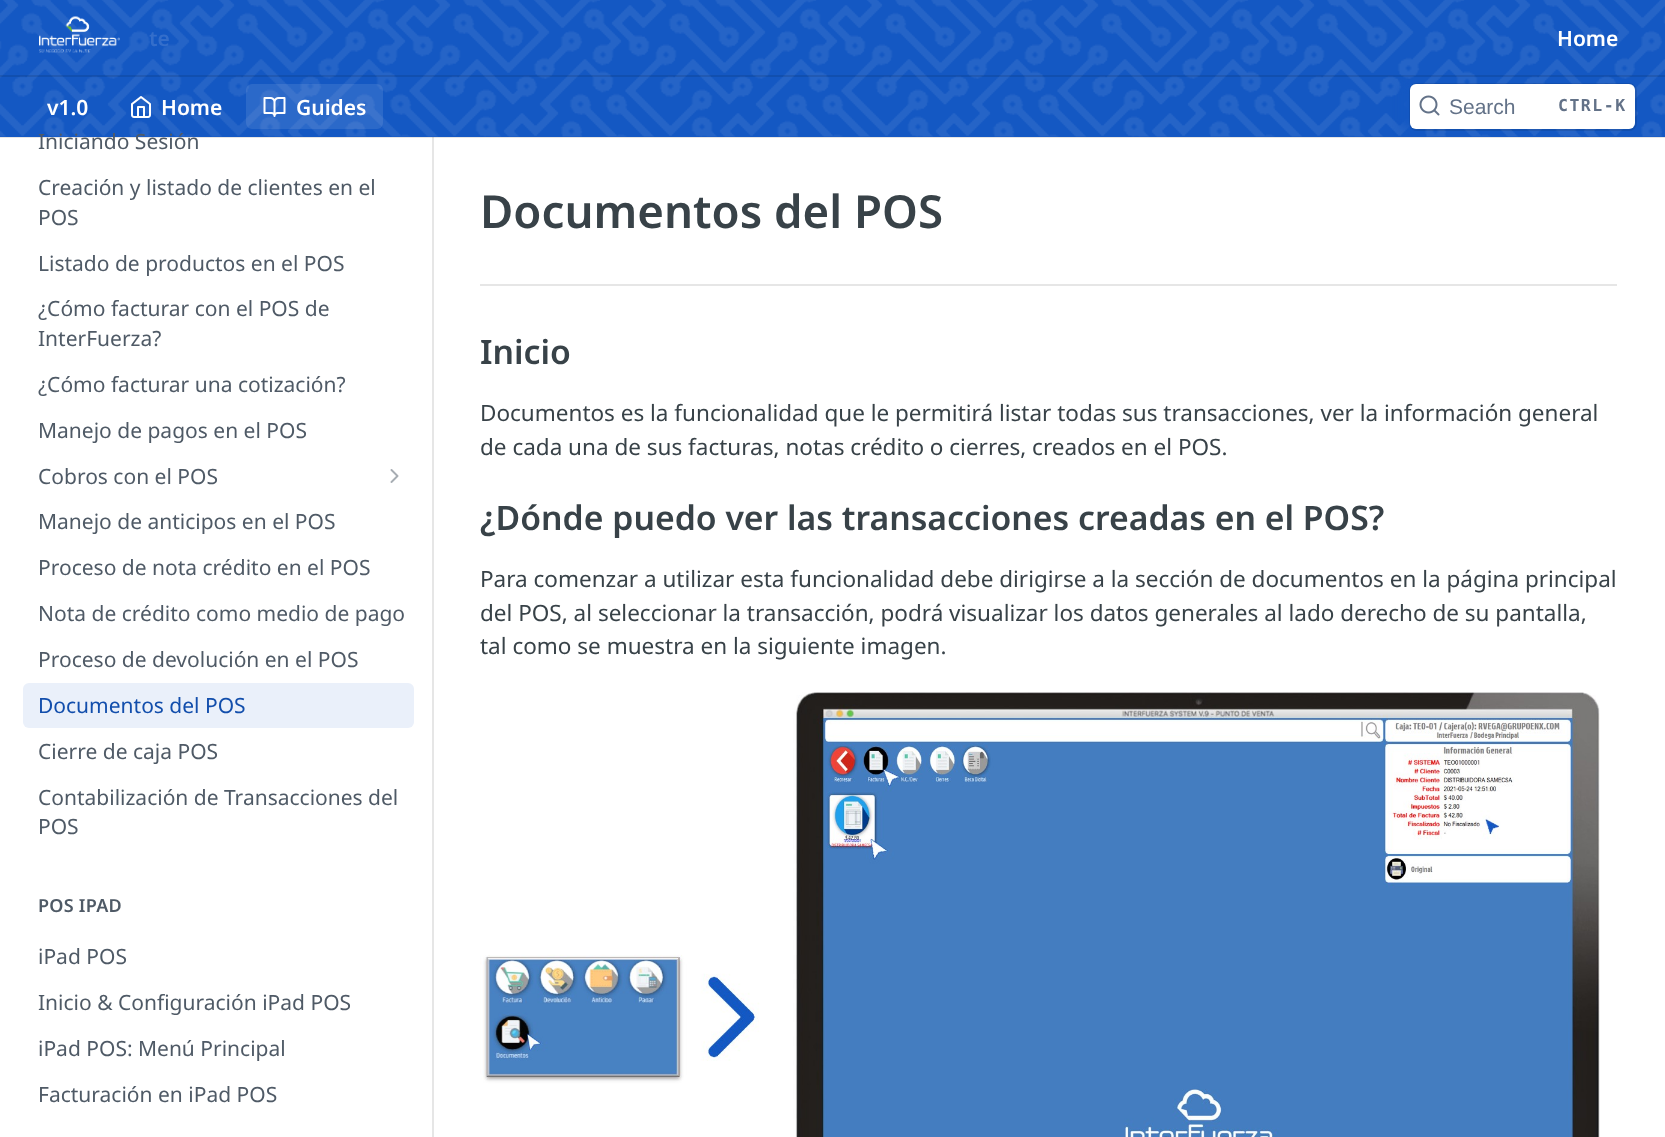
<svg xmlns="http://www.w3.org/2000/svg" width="1665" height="1137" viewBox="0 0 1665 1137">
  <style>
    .t1 { font: 600 21px Noto Sans; fill: #346ecb; }
    .t2 { font: 600 21px Noto Sans; fill: #fff; }
    .t3 { font: 21px Liberation Sans; fill: #637288; }
    .t4 { font: bold 16.5px DejaVu Sans Mono; letter-spacing: 1.5px; fill: #637288; }
    .t5 { font: 21px Noto Sans; fill: #4f5a66; }
    .t6 { font: 21px Noto Sans; fill: #124eac; }
    .t7 { font: 600 18px Noto Sans; letter-spacing: 0.25px; fill: #4f5a66; }
    .t8 { font: 600 45.6px Noto Sans; fill: #384248; }
    .t9 { font: 600 33.75px Noto Sans; fill: #384248; }
    .t10 { font: 22.5px Noto Sans; fill: #384248; }
  </style>
  <defs>
    <clipPath id="clip1"><rect x="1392" y="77" width="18" height="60"/></clipPath>
  </defs>
  <rect width="100%" height="100%" fill="#fff"/>
  <path d="M2 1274H434V137H432V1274Z" fill="#e6e6e6"/>
  <rect x="0" y="137" width="1665" height="1" fill="#0000001a"/>
  <rect x="0" y="0" width="1665" height="137" fill="#1458c3"/>
  <image x="0" y="0" width="1665" height="137" href="images/1.png"/>
  <rect x="0" y="75" width="1665" height="2" fill="#0000001a"/>
  <image x="39" y="16" width="81" height="37" href="images/2.png"/>
  <text x="149" y="46" class="t1">te</text>
  <text x="1557" y="46" class="t2">Home</text>
  <text x="47" y="115" class="t2">v1.0</text>
  <image x="131" y="96" width="20" height="22" href="images/3.png"/>
  <text x="161" y="115" class="t2">Home</text>
  <rect x="246" y="84" width="137" height="45" rx="6" fill="#ffffff1a"/>
  <image x="263" y="97" width="23" height="20" href="images/4.png"/>
  <text x="296" y="115" class="t2">Guides</text>
  <g clip-path="url(#clip1)">
    <rect x="1401" y="86" width="237" height="42" fill="#1458c3" filter="blur(4.5px)"/>
  </g>
  <rect x="1410" y="84" width="226" height="46" rx="7" fill="none" stroke="#0000001a" stroke-width="2"/>
  <rect x="1410" y="84" width="225" height="45" rx="6" fill="#fff"/>
  <image x="1419" y="95" width="21" height="21" href="images/5.png"/>
  <text x="1449" y="114" class="t3">Search</text>
  <text x="1558" y="111" class="t4">CTRL-K</text>
  <text x="38" y="149" class="t5">Iniciando Sesión</text>
  <text x="38" y="195" class="t5">Creación y listado de clientes en el</text>
  <text x="38" y="225" class="t5">POS</text>
  <text x="38" y="271" class="t5">Listado de productos en el POS</text>
  <text x="38" y="316" class="t5">¿Cómo facturar con el POS de</text>
  <text x="38" y="346" class="t5">InterFuerza?</text>
  <text x="38" y="392" class="t5">¿Cómo facturar una cotización?</text>
  <text x="38" y="438" class="t5">Manejo de pagos en el POS</text>
  <text x="38" y="484" class="t5">Cobros con el POS</text>
  <image x="390" y="469" width="9" height="14" href="images/6.png"/>
  <text x="38" y="529" class="t5">Manejo de anticipos en el POS</text>
  <text x="38" y="575" class="t5">Proceso de nota crédito en el POS</text>
  <text x="38" y="621" class="t5">Nota de crédito como medio de pago</text>
  <text x="38" y="667" class="t5">Proceso de devolución en el POS</text>
  <rect x="23" y="683" width="391" height="45" rx="6" fill="#eaf0fa"/>
  <text x="38" y="713" class="t6">Documentos del POS</text>
  <text x="38" y="759" class="t5">Cierre de caja POS</text>
  <text x="38" y="805" class="t5">Contabilización de Transacciones del</text>
  <text x="38" y="834" class="t5">POS</text>
  <text x="38" y="912" class="t7">POS IPAD</text>
  <text x="38" y="964" class="t5">iPad POS</text>
  <text x="38" y="1010" class="t5">Inicio &amp; Configuración iPad POS</text>
  <text x="38" y="1056" class="t5">iPad POS: Menú Principal</text>
  <text x="38" y="1102" class="t5">Facturación en iPad POS</text>
  <rect x="480" y="284" width="1137" height="2" fill="#e6e6e6"/>
  <text x="480" y="228" class="t8">Documentos del POS</text>
  <text x="480" y="364" class="t9">Inicio</text>
  <text x="480" y="421" class="t10">Documentos es la funcionalidad que le permitirá listar todas sus transacciones, ver la información general</text>
  <text x="480" y="455" class="t10">de cada una de sus facturas, notas crédito o cierres, creados en el POS.</text>
  <text x="480" y="530" class="t9">¿Dónde puedo ver las transacciones creadas en el POS?</text>
  <text x="480" y="587" class="t10">Para comenzar a utilizar esta funcionalidad debe dirigirse a la sección de documentos en la página principal</text>
  <text x="480" y="621" class="t10">del POS, al seleccionar la transacción, podrá visualizar los datos generales al lado derecho de su pantalla,</text>
  <text x="480" y="654" class="t10">tal como se muestra en la siguiente imagen.</text>
  <image x="480" y="692" width="1120" height="445" href="images/7.png"/>
</svg>
